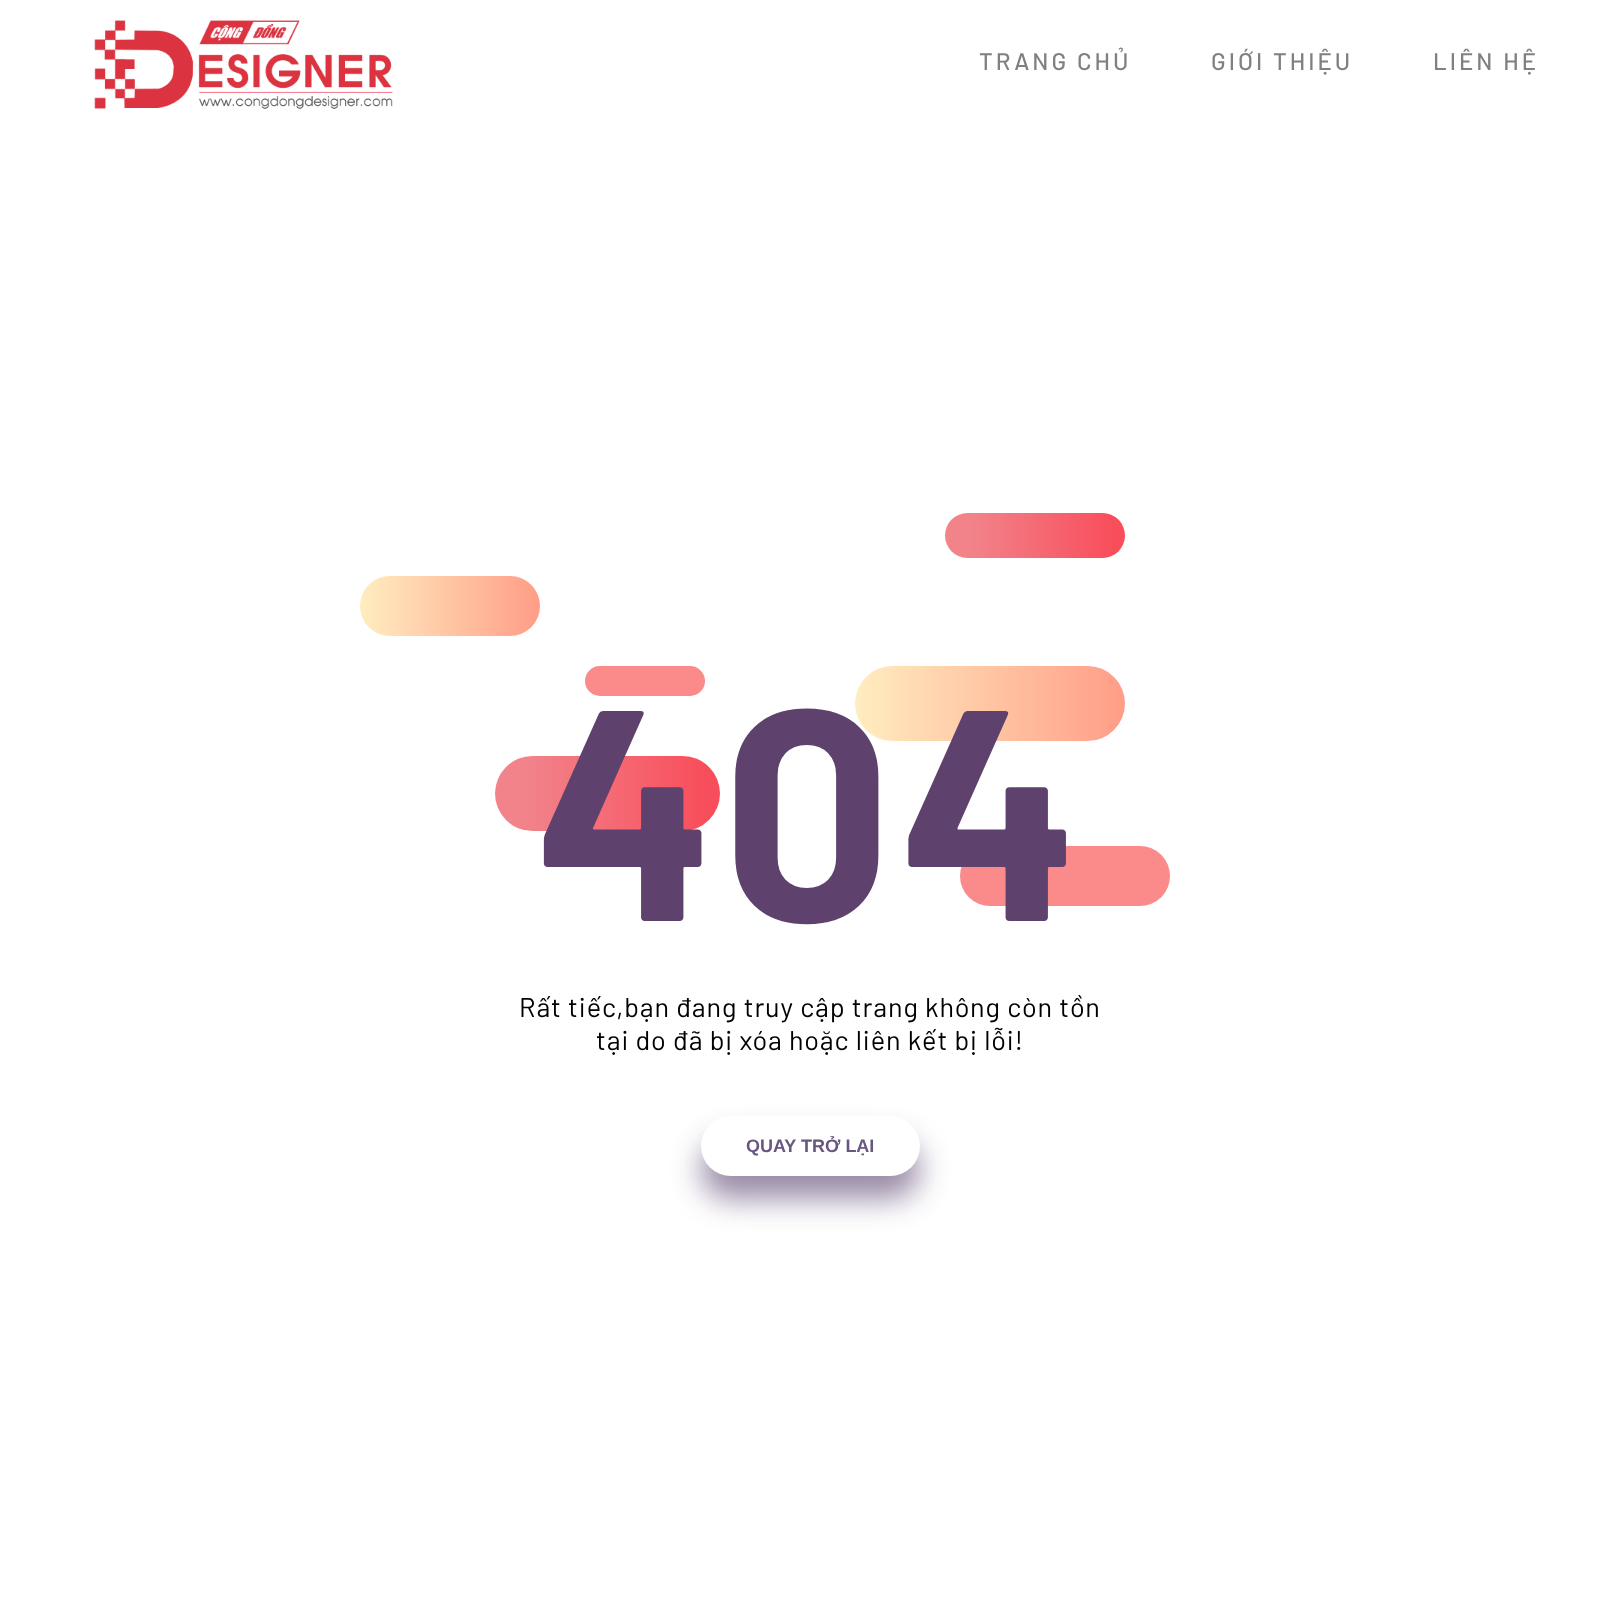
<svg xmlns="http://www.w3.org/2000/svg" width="1620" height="1602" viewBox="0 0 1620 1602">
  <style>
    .t1 { font: 500 24px Barlow; letter-spacing: 3px; fill: #808080; }
    .t2 { font: bold 300px Barlow; letter-spacing: 6px; fill: #5e416d; }
    .t3 { font: 27px Barlow; letter-spacing: 0.9px; fill: #000; }
    .t4 { font: bold 18px Liberation Sans; fill: #695681; }
  </style>
  <defs>
    <linearGradient id="g1" gradientUnits="userSpaceOnUse" x1="945" y1="536" x2="1125" y2="536"><stop offset="0.14" stop-color="#f2838b"/><stop offset="0.95" stop-color="#f84d5a"/></linearGradient>
    <linearGradient id="g2" gradientUnits="userSpaceOnUse" x1="495" y1="794" x2="720" y2="794"><stop offset="0.14" stop-color="#f2838b"/><stop offset="0.95" stop-color="#f84d5a"/></linearGradient>
    <linearGradient id="g3" gradientUnits="userSpaceOnUse" x1="360" y1="606" x2="540" y2="606"><stop offset="0" stop-color="#ffedc0"/><stop offset="1" stop-color="#ff9d87"/></linearGradient>
    <linearGradient id="g4" gradientUnits="userSpaceOnUse" x1="855" y1="704" x2="1125" y2="704"><stop offset="0" stop-color="#ffedc0"/><stop offset="1" stop-color="#ff9d87"/></linearGradient>
  </defs>
  <rect width="100%" height="100%" fill="#fff"/>
  <image x="94" y="20" width="299" height="89" href="images/1.png"/>
  <text x="979" y="70" class="t1">TRANG CHỦ</text>
  <text x="1211" y="70" class="t1">GIỚI THIỆU</text>
  <text x="1433" y="70" class="t1">LIÊN HỆ</text>
  <rect x="945" y="513" width="180" height="45" rx="22.5" fill="url(#g1)"/>
  <rect x="495" y="756" width="225" height="75" rx="37.5" fill="url(#g2)"/>
  <rect x="360" y="576" width="180" height="60" rx="30" fill="url(#g3)"/>
  <rect x="855" y="666" width="270" height="75" rx="37.5" fill="url(#g4)"/>
  <rect x="585" y="666" width="120" height="30" rx="15" fill="#fb8a8a"/>
  <rect x="960" y="846" width="210" height="60" rx="30" fill="#fb8a8a"/>
  <text x="534" y="921" class="t2">404</text>
  <text x="519" y="1017" class="t3">Rất tiếc,bạn đang truy cập trang không còn tồn</text>
  <text x="596" y="1050" class="t3">tại do đã bị xóa hoặc liên kết bị lỗi!</text>
  <rect x="701" y="1139" width="219" height="60" rx="30" fill="#36184f80" filter="blur(15px)"/>
  <rect x="701" y="1116" width="219" height="60" rx="30" fill="#fff"/>
  <text x="746" y="1152" class="t4">QUAY TRỞ LẠI</text>
</svg>
